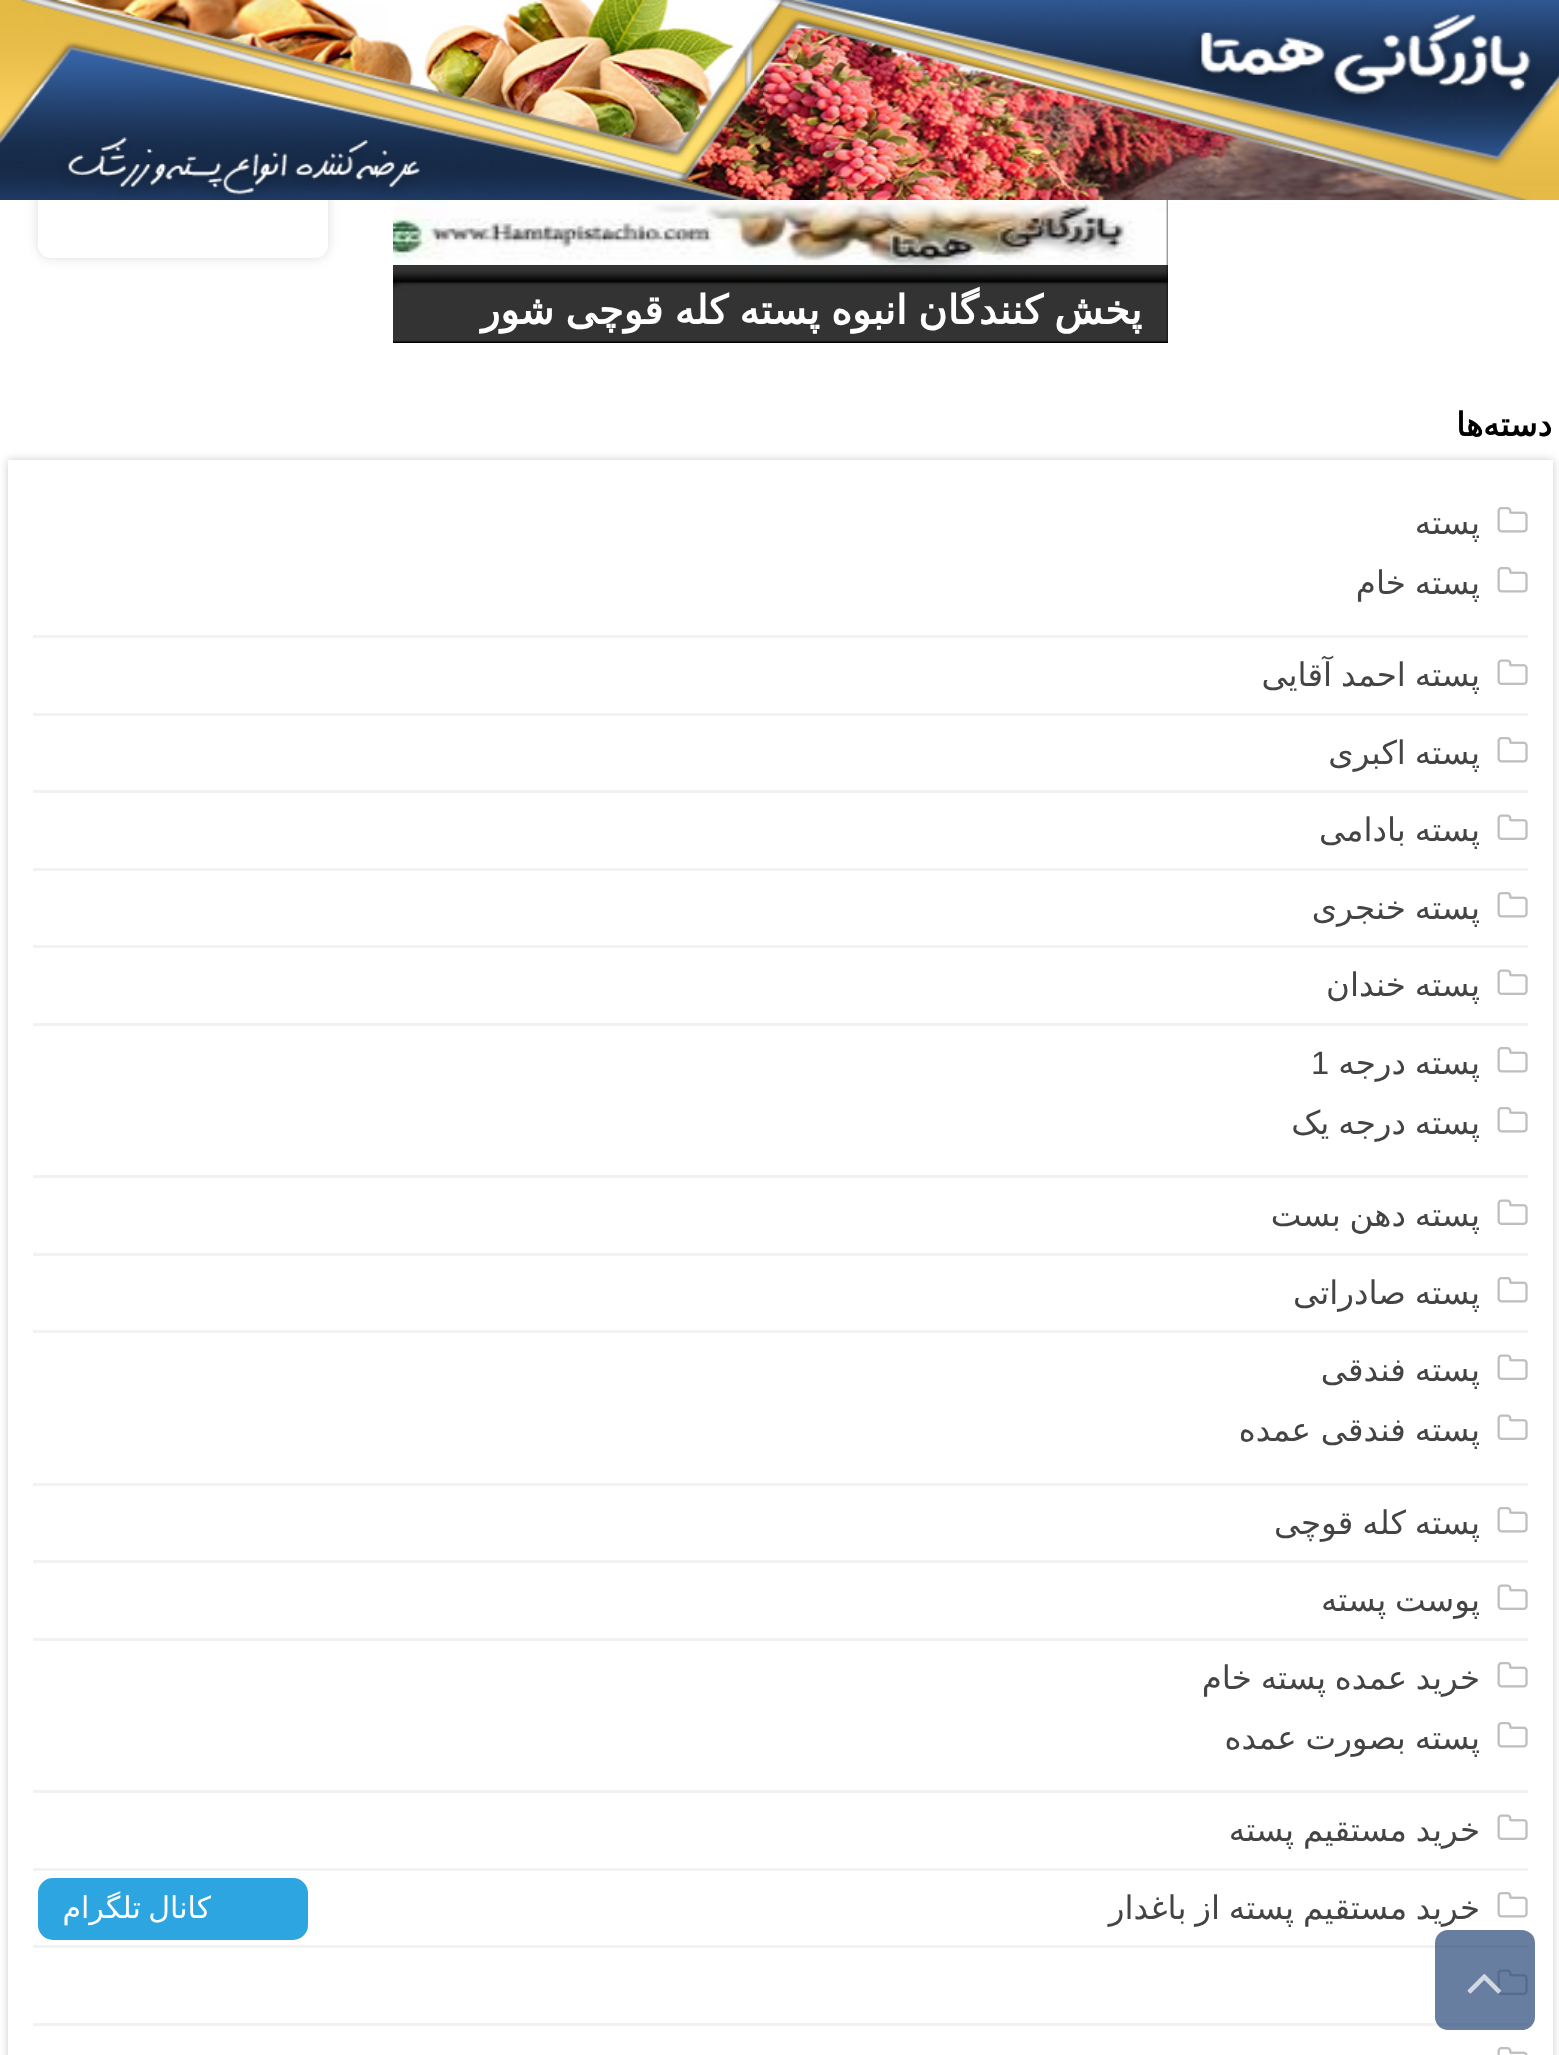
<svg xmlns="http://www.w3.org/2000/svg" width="1559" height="2055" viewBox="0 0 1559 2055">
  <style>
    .t1 { font: bold 40px DejaVu Sans; direction: rtl; fill: #fff; }
    .t2 { font: bold 32.5px DejaVu Sans; direction: rtl; fill: #000; }
    .t3 { font: 32.5px DejaVu Sans; direction: rtl; fill: #444; }
    .t4 { font: 32.5px Liberation Sans; fill: #444; }
    .t5 { font: 30px DejaVu Sans; direction: rtl; fill: #fff; }
  </style>
  <defs>
    <clipPath id="clip1"><path d="M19 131H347V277H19ZM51 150H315C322 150 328 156 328 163V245C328 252 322 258 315 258H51C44 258 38 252 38 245V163C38 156 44 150 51 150Z" clip-rule="evenodd"/></clipPath>
  </defs>
  <rect width="100%" height="100%" fill="#fff"/>
  <g clip-path="url(#clip1)">
    <rect x="38" y="150" width="290" height="108" rx="13" fill="#ddd" filter="blur(6px)"/>
  </g>
  <image x="0" y="0" width="1559" height="200" href="images/1.png"/>
  <rect x="393" y="200" width="775" height="143" fill="#000"/>
  <image x="393" y="200" width="775" height="142" href="images/2.png"/>
  <rect x="393" y="265" width="775" height="77" fill="#000000cc"/>
  <text x="1142" y="324" word-spacing="-1.5" class="t1">پخش کنندگان انبوه پسته کله قوچی شور</text>
  <text x="1552" y="436" class="t2">دسته‌ها</text>
  <rect x="8" y="460" width="1545" height="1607" fill="#cacaca" filter="blur(4px)"/>
  <rect x="8" y="460" width="1545" height="1595" fill="#fff"/>
  <rect x="33" y="635" width="1495" height="3" fill="#f2f2f2"/>
  <image x="1497" y="507" width="31" height="26" href="images/3.png"/>
  <text x="1480" y="534" class="t3">پسته</text>
  <image x="1497" y="567" width="31" height="26" href="images/3.png"/>
  <text x="1480" y="594" word-spacing="-1.5" class="t3">پسته خام</text>
  <rect x="33" y="713" width="1495" height="3" fill="#f2f2f2"/>
  <image x="1497" y="659" width="31" height="26" href="images/4.png"/>
  <text x="1480" y="686" word-spacing="-1.5" class="t3">پسته احمد آقایی</text>
  <rect x="33" y="790" width="1495" height="3" fill="#f2f2f2"/>
  <image x="1497" y="737" width="31" height="26" href="images/3.png"/>
  <text x="1480" y="764" word-spacing="-1.5" class="t3">پسته اکبری</text>
  <rect x="33" y="868" width="1495" height="3" fill="#f2f2f2"/>
  <image x="1497" y="814" width="31" height="26" href="images/4.png"/>
  <text x="1480" y="841" word-spacing="-1.5" class="t3">پسته بادامی</text>
  <rect x="33" y="945" width="1495" height="3" fill="#f2f2f2"/>
  <image x="1497" y="892" width="31" height="26" href="images/3.png"/>
  <text x="1480" y="919" word-spacing="-1.5" class="t3">پسته خنجری</text>
  <rect x="33" y="1023" width="1495" height="3" fill="#f2f2f2"/>
  <image x="1497" y="969" width="31" height="26" href="images/4.png"/>
  <text x="1480" y="996" word-spacing="-1.5" class="t3">پسته خندان</text>
  <rect x="33" y="1175" width="1495" height="3" fill="#f2f2f2"/>
  <image x="1497" y="1047" width="31" height="26" href="images/3.png"/>
  <text x="1480" y="1074" word-spacing="-1.5" class="t3">پسته درجه</text>
  <text x="1311" y="1074" class="t4">1</text>
  <image x="1497" y="1107" width="31" height="26" href="images/3.png"/>
  <text x="1480" y="1134" word-spacing="-1.5" class="t3">پسته درجه یک</text>
  <rect x="33" y="1253" width="1495" height="3" fill="#f2f2f2"/>
  <image x="1497" y="1199" width="31" height="26" href="images/4.png"/>
  <text x="1480" y="1226" word-spacing="-1.5" class="t3">پسته دهن بست</text>
  <rect x="33" y="1330" width="1495" height="3" fill="#f2f2f2"/>
  <image x="1497" y="1277" width="31" height="26" href="images/3.png"/>
  <text x="1480" y="1304" word-spacing="-1.5" class="t3">پسته صادراتی</text>
  <rect x="33" y="1483" width="1495" height="3" fill="#f2f2f2"/>
  <image x="1497" y="1354" width="31" height="26" href="images/4.png"/>
  <text x="1480" y="1381" word-spacing="-1.5" class="t3">پسته فندقی</text>
  <image x="1497" y="1414" width="31" height="26" href="images/4.png"/>
  <text x="1480" y="1441" word-spacing="-1.5" class="t3">پسته فندقی</text>
  <text x="1311" y="1441" class="t3">عمده</text>
  <rect x="33" y="1560" width="1495" height="3" fill="#f2f2f2"/>
  <image x="1497" y="1507" width="31" height="26" href="images/3.png"/>
  <text x="1480" y="1534" word-spacing="-1.5" class="t3">پسته کله قوچی</text>
  <rect x="33" y="1638" width="1495" height="3" fill="#f2f2f2"/>
  <image x="1497" y="1584" width="31" height="26" href="images/4.png"/>
  <text x="1480" y="1611" word-spacing="-1.5" class="t3">پوست پسته</text>
  <rect x="33" y="1790" width="1495" height="3" fill="#f2f2f2"/>
  <image x="1497" y="1662" width="31" height="26" href="images/3.png"/>
  <text x="1480" y="1689" word-spacing="-1.5" class="t3">خرید عمده پسته خام</text>
  <image x="1497" y="1722" width="31" height="26" href="images/3.png"/>
  <text x="1480" y="1749" word-spacing="-1.5" class="t3">پسته بصورت عمده</text>
  <rect x="33" y="1868" width="1495" height="3" fill="#f2f2f2"/>
  <image x="1497" y="1814" width="31" height="26" href="images/4.png"/>
  <text x="1480" y="1841" word-spacing="-1.5" class="t3">خرید مستقیم پسته</text>
  <rect x="33" y="1945" width="1495" height="3" fill="#f2f2f2"/>
  <image x="1497" y="1892" width="31" height="26" href="images/3.png"/>
  <text x="1480" y="1919" word-spacing="-1.5" class="t3">خرید مستقیم پسته از باغدار</text>
  <rect x="33" y="2023" width="1495" height="3" fill="#f2f2f2"/>
  <image x="1497" y="1969" width="31" height="26" href="images/4.png"/>
  <image x="1497" y="2047" width="31" height="8" href="images/5.png"/>
  <rect x="38" y="1878" width="270" height="62" rx="15" fill="#2ca5e0"/>
  <text x="211" y="1918" word-spacing="-2" class="t5">کانال تلگرام</text>
  <rect x="1435" y="1930" width="100" height="100" rx="13" fill="#274778b3"/>
  <image x="1467" y="1974" width="34" height="20" href="images/6.png"/>
</svg>
